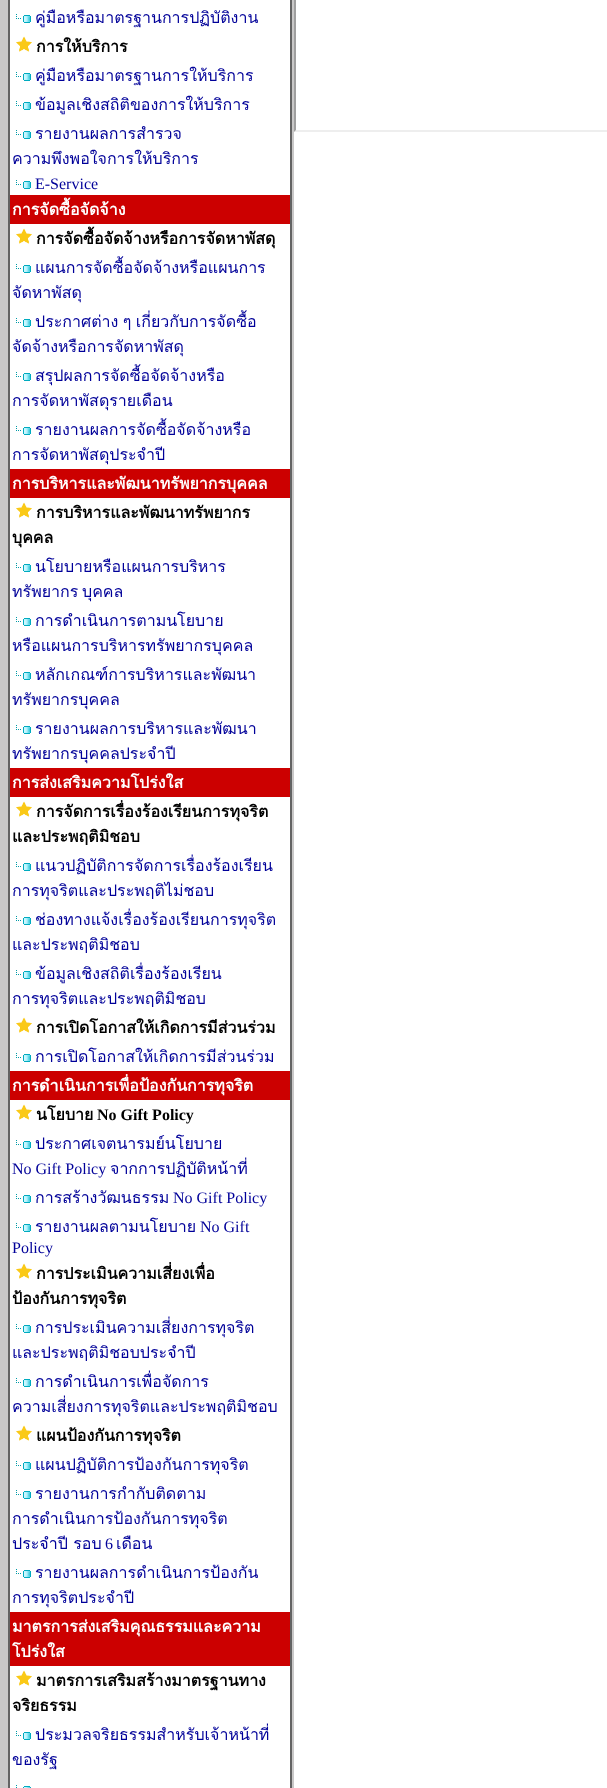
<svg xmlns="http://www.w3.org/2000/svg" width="607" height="1788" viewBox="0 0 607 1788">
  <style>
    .t1 { font: 16px Loma; fill: #009; }
    .t2 { font: bold 16px Loma; fill: #000; }
    .t3 { font: 16px Liberation Serif; fill: #009; }
    .t4 { font: bold 16px Loma; fill: #fff; }
    .t5 { font: bold 16px Liberation Serif; fill: #000; }
  </style>
  <rect width="100%" height="100%" fill="#c9c8c8"/>
  <rect x="8.5" y="-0.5" width="283" height="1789" fill="none" stroke="#636363"/>
  <rect x="9.5" y="-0.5" width="281" height="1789" fill="none" stroke="#636363"/>
  <rect x="10" y="0" width="280" height="195" fill="#fff"/>
  <image x="16" y="14" width="15" height="9" href="images/1.png"/>
  <text x="35" y="23" class="t1">คู่มือหรือมาตรฐานการปฏิบัติงาน</text>
  <image x="16" y="36" width="16" height="16" href="images/2.png"/>
  <text x="36" y="52" class="t2">การให้บริการ</text>
  <image x="16" y="72" width="15" height="9" href="images/1.png"/>
  <text x="35" y="81" class="t1">คู่มือหรือมาตรฐานการให้บริการ</text>
  <image x="16" y="101" width="15" height="9" href="images/1.png"/>
  <text x="35" y="110" class="t1">ข้อมูลเชิงสถิติของการให้บริการ</text>
  <image x="16" y="130" width="15" height="9" href="images/1.png"/>
  <text x="35" y="139" class="t1">รายงานผลการสำรวจ</text>
  <text x="12" y="164" class="t1">ความพึงพอใจการให้บริการ</text>
  <image x="16" y="180" width="15" height="9" href="images/1.png"/>
  <text x="35" y="189" class="t3">E-Service</text>
  <rect x="10" y="195" width="280" height="29" fill="#c00"/>
  <text x="12" y="215" class="t4">การจัดซื้อจัดจ้าง</text>
  <rect x="10" y="224" width="280" height="245" fill="#fff"/>
  <image x="16" y="228" width="16" height="16" href="images/2.png"/>
  <text x="36" y="244" class="t2">การจัดซื้อจัดจ้างหรือการจัดหาพัสดุ</text>
  <image x="16" y="264" width="15" height="9" href="images/1.png"/>
  <text x="35" y="273" class="t1">แผนการจัดซื้อจัดจ้างหรือแผนการ</text>
  <text x="12" y="298" class="t1">จัดหาพัสดุ</text>
  <image x="16" y="318" width="15" height="9" href="images/1.png"/>
  <text x="35" y="327" word-spacing="-1" class="t1">ประกาศต่าง ๆ เกี่ยวกับการจัดซื้อ</text>
  <text x="12" y="352" class="t1">จัดจ้างหรือการจัดหาพัสดุ</text>
  <image x="16" y="372" width="15" height="9" href="images/1.png"/>
  <text x="35" y="381" class="t1">สรุปผลการจัดซื้อจัดจ้างหรือ</text>
  <text x="12" y="406" class="t1">การจัดหาพัสดุรายเดือน</text>
  <image x="16" y="426" width="15" height="9" href="images/1.png"/>
  <text x="35" y="435" class="t1">รายงานผลการจัดซื้อจัดจ้างหรือ</text>
  <text x="12" y="460" class="t1">การจัดหาพัสดุประจำปี</text>
  <rect x="10" y="469" width="280" height="29" fill="#c00"/>
  <text x="12" y="489" class="t4">การบริหารและพัฒนาทรัพยากรบุคคล</text>
  <rect x="10" y="498" width="280" height="270" fill="#fff"/>
  <image x="16" y="502" width="16" height="16" href="images/2.png"/>
  <text x="36" y="518" class="t2">การบริหารและพัฒนาทรัพยากร</text>
  <text x="12" y="543" class="t2">บุคคล</text>
  <image x="16" y="563" width="15" height="9" href="images/1.png"/>
  <text x="35" y="572" class="t1">นโยบายหรือแผนการบริหาร</text>
  <text x="12" y="597" class="t1">ทรัพยากร</text>
  <text x="82" y="597" class="t1">บุคคล</text>
  <image x="16" y="617" width="15" height="9" href="images/1.png"/>
  <text x="35" y="626" class="t1">การดำเนินการตามนโยบาย</text>
  <text x="12" y="651" class="t1">หรือแผนการบริหารทรัพยากรบุคคล</text>
  <image x="16" y="671" width="15" height="9" href="images/1.png"/>
  <text x="35" y="680" class="t1">หลักเกณฑ์การบริหารและพัฒนา</text>
  <text x="12" y="705" class="t1">ทรัพยากรบุคคล</text>
  <image x="16" y="725" width="15" height="9" href="images/1.png"/>
  <text x="35" y="734" class="t1">รายงานผลการบริหารและพัฒนา</text>
  <text x="12" y="759" class="t1">ทรัพยากรบุคคลประจำปี</text>
  <rect x="10" y="768" width="280" height="29" fill="#c00"/>
  <text x="12" y="788" class="t4">การส่งเสริมความโปร่งใส</text>
  <rect x="10" y="797" width="280" height="274" fill="#fff"/>
  <image x="16" y="801" width="16" height="16" href="images/2.png"/>
  <text x="36" y="817" class="t2">การจัดการเรื่องร้องเรียนการทุจริต</text>
  <text x="12" y="842" class="t2">และประพฤติมิชอบ</text>
  <image x="16" y="862" width="15" height="9" href="images/1.png"/>
  <text x="35" y="871" class="t1">แนวปฏิบัติการจัดการเรื่องร้องเรียน</text>
  <text x="12" y="896" class="t1">การทุจริตและประพฤติไม่ชอบ</text>
  <image x="16" y="916" width="15" height="9" href="images/1.png"/>
  <text x="35" y="925" class="t1">ช่องทางแจ้งเรื่องร้องเรียนการทุจริต</text>
  <text x="12" y="950" class="t1">และประพฤติมิชอบ</text>
  <image x="16" y="970" width="15" height="9" href="images/1.png"/>
  <text x="35" y="979" class="t1">ข้อมูลเชิงสถิติเรื่องร้องเรียน</text>
  <text x="12" y="1004" class="t1">การทุจริตและประพฤติมิชอบ</text>
  <image x="16" y="1017" width="16" height="16" href="images/2.png"/>
  <text x="36" y="1033" class="t2">การเปิดโอกาสให้เกิดการมีส่วนร่วม</text>
  <image x="16" y="1053" width="15" height="9" href="images/1.png"/>
  <text x="35" y="1062" class="t1">การเปิดโอกาสให้เกิดการมีส่วนร่วม</text>
  <rect x="10" y="1071" width="280" height="29" fill="#c00"/>
  <text x="12" y="1091" class="t4">การดำเนินการเพื่อป้องกันการทุจริต</text>
  <rect x="10" y="1100" width="280" height="512" fill="#fff"/>
  <image x="16" y="1104" width="16" height="16" href="images/2.png"/>
  <text x="36" y="1120" class="t2">นโยบาย</text>
  <text x="97" y="1120" class="t5">No Gift Policy</text>
  <image x="16" y="1140" width="15" height="9" href="images/1.png"/>
  <text x="35" y="1149" class="t1">ประกาศเจตนารมย์นโยบาย</text>
  <text x="12" y="1174" class="t3">No Gift Policy</text>
  <text x="110" y="1174" class="t1">จากการปฏิบัติหน้าที่</text>
  <image x="16" y="1194" width="15" height="9" href="images/1.png"/>
  <text x="35" y="1203" class="t1">การสร้างวัฒนธรรม</text>
  <text x="173" y="1203" class="t3">No Gift Policy</text>
  <image x="16" y="1223" width="15" height="9" href="images/1.png"/>
  <text x="35" y="1232" class="t1">รายงานผลตามนโยบาย</text>
  <text x="200" y="1232" class="t3">No Gift</text>
  <text x="12" y="1253" class="t3">Policy</text>
  <image x="16" y="1263" width="16" height="16" href="images/2.png"/>
  <text x="36" y="1279" class="t2">การประเมินความเสี่ยงเพื่อ</text>
  <text x="12" y="1304" class="t2">ป้องกันการทุจริต</text>
  <image x="16" y="1324" width="15" height="9" href="images/1.png"/>
  <text x="35" y="1333" class="t1">การประเมินความเสี่ยงการทุจริต</text>
  <text x="12" y="1358" class="t1">และประพฤติมิชอบประจำปี</text>
  <image x="16" y="1378" width="15" height="9" href="images/1.png"/>
  <text x="35" y="1387" class="t1">การดำเนินการเพื่อจัดการ</text>
  <text x="12" y="1412" class="t1">ความเสี่ยงการทุจริตและประพฤติมิชอบ</text>
  <image x="16" y="1425" width="16" height="16" href="images/2.png"/>
  <text x="36" y="1441" class="t2">แผนป้องกันการทุจริต</text>
  <image x="16" y="1461" width="15" height="9" href="images/1.png"/>
  <text x="35" y="1470" class="t1">แผนปฏิบัติการป้องกันการทุจริต</text>
  <image x="16" y="1490" width="15" height="9" href="images/1.png"/>
  <text x="35" y="1499" class="t1">รายงานการกำกับติดตาม</text>
  <text x="12" y="1524" class="t1">การดำเนินการป้องกันการทุจริต</text>
  <text x="12" y="1549" class="t1">ประจำปี รอบ</text>
  <text x="105" y="1549" class="t3">6</text>
  <text x="116" y="1549" class="t1">เดือน</text>
  <image x="16" y="1569" width="15" height="9" href="images/1.png"/>
  <text x="35" y="1578" class="t1">รายงานผลการดำเนินการป้องกัน</text>
  <text x="12" y="1603" class="t1">การทุจริตประจำปี</text>
  <rect x="10" y="1612" width="280" height="54" fill="#c00"/>
  <text x="12" y="1632" class="t4">มาตรการส่งเสริมคุณธรรมและความ</text>
  <text x="12" y="1657" class="t4">โปร่งใส</text>
  <rect x="10" y="1666" width="280" height="122" fill="#fff"/>
  <image x="16" y="1670" width="16" height="16" href="images/2.png"/>
  <text x="36" y="1686" class="t2">มาตรการเสริมสร้างมาตรฐานทาง</text>
  <text x="12" y="1711" class="t2">จริยธรรม</text>
  <image x="16" y="1731" width="15" height="9" href="images/1.png"/>
  <text x="35" y="1740" class="t1">ประมวลจริยธรรมสำหรับเจ้าหน้าที่</text>
  <text x="12" y="1765" class="t1">ของรัฐ</text>
  <image x="16" y="1785" width="15" height="3" href="images/3.png"/>
  <rect x="294" y="0" width="313" height="1788" fill="#fff"/>
  <path d="M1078 132H294L296 130H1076Z" fill="#eee"/>
  <path d="M294 132V-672L296-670V130Z" fill="#9f9f9f"/>
</svg>
